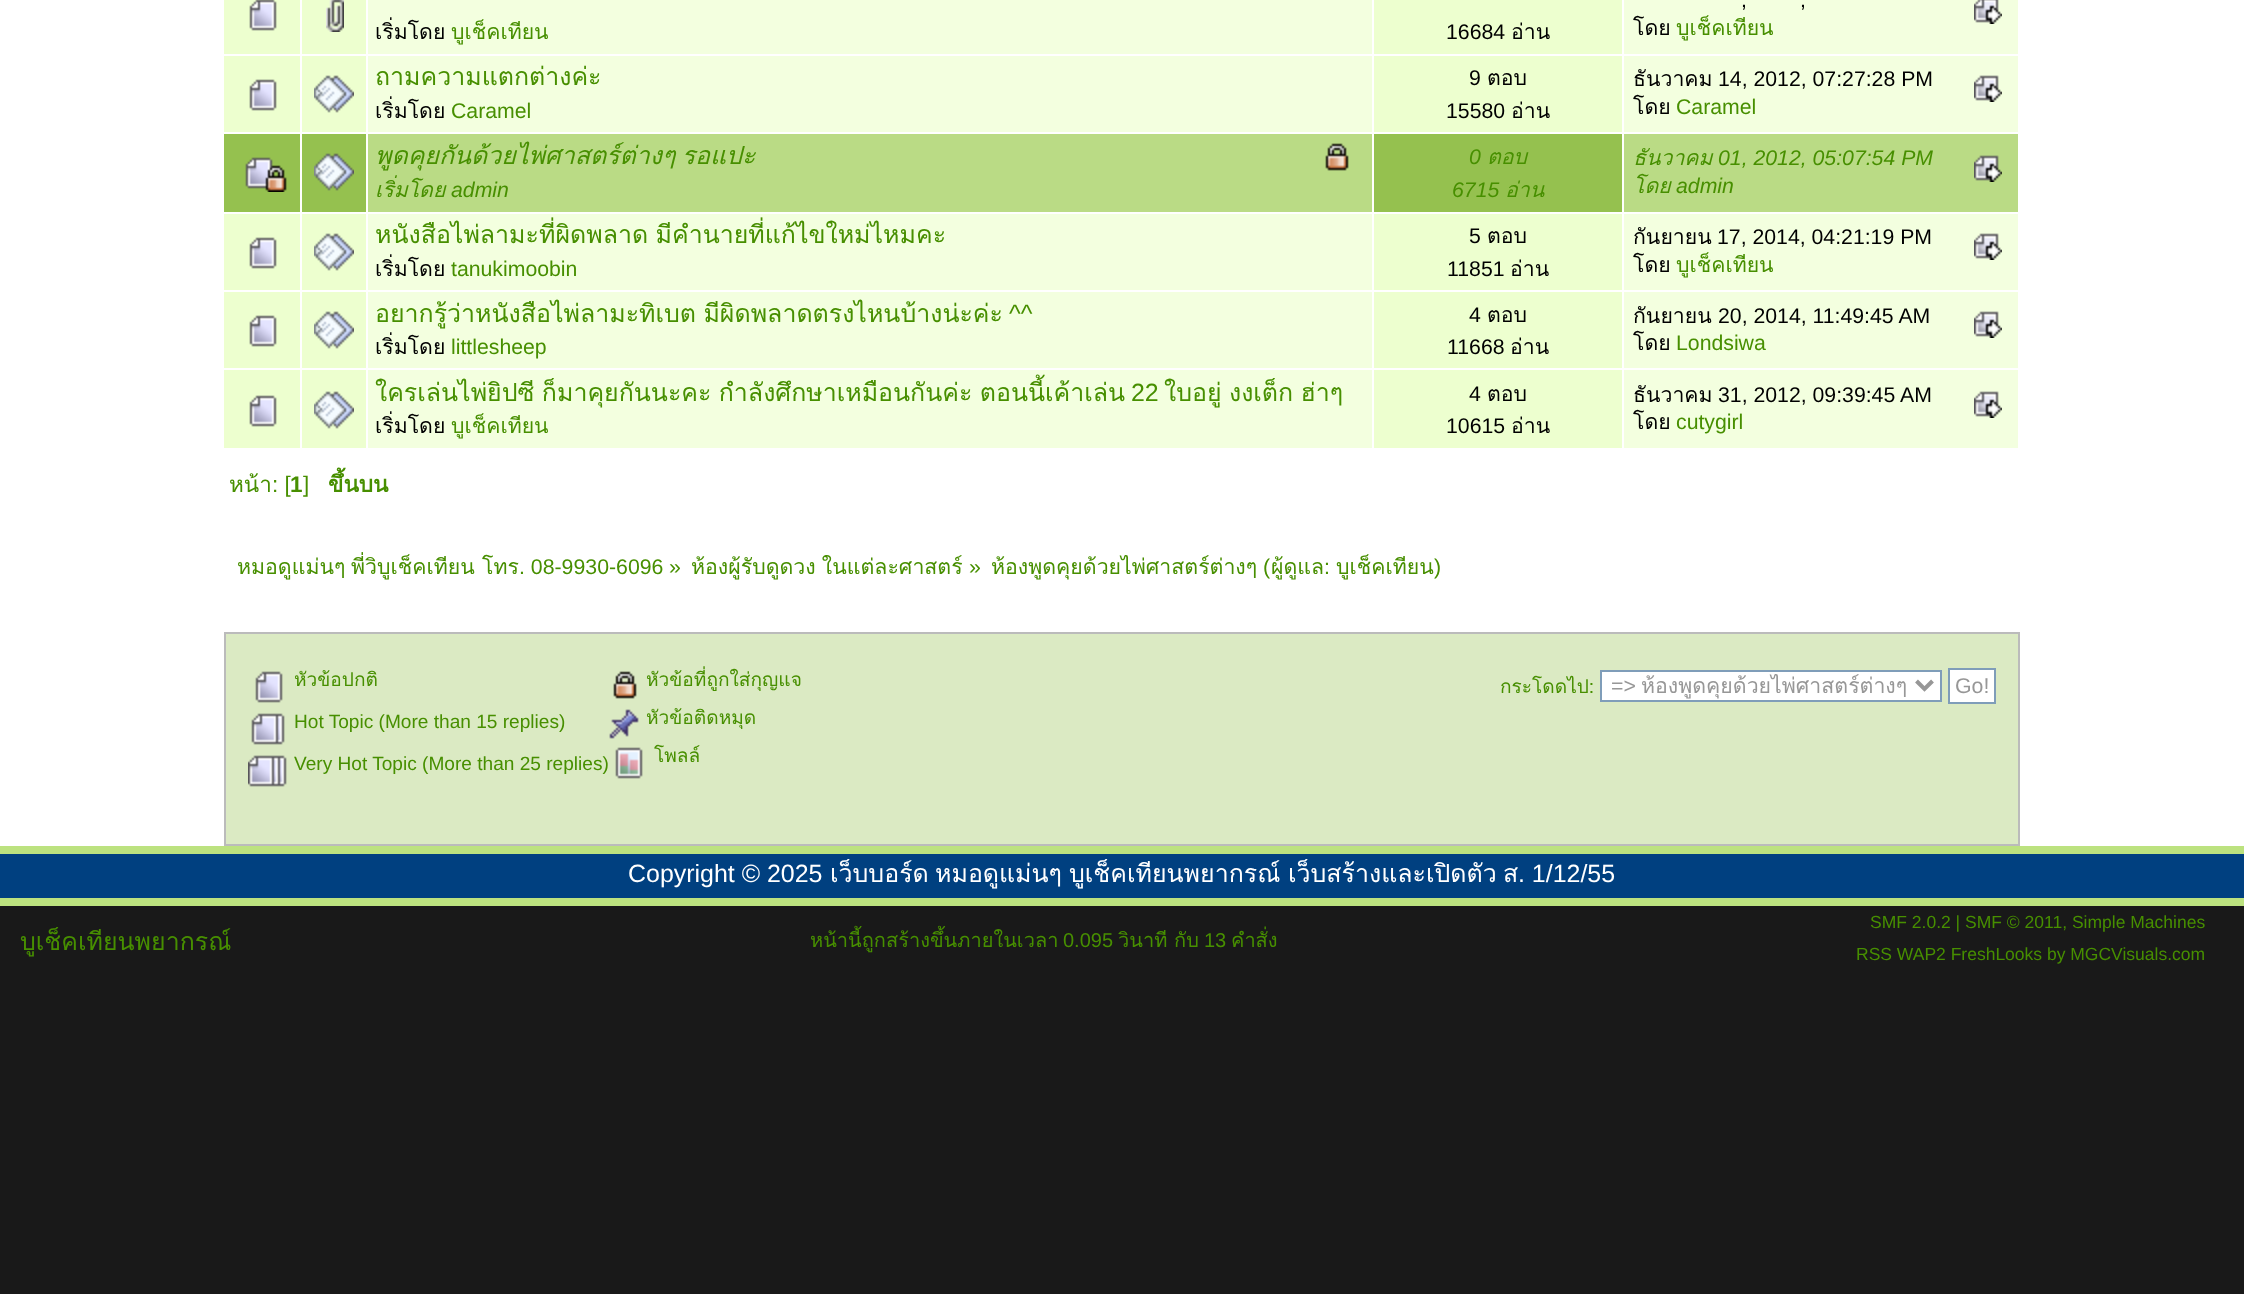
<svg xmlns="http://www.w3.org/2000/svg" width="2244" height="1294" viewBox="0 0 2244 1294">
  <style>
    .t1 { font: 21.25px Loma; fill: #000; }
    .t2 { font: 21.25px Loma; fill: #478f00; }
    .t3 { font: 21.25px Liberation Sans; fill: #000; }
    .t4 { font: 24.95px Loma; fill: #478f00; }
    .t5 { font: 21.25px Liberation Sans; fill: #478f00; }
    .t6 { font: italic 24.95px Loma; fill: #478f00; }
    .t7 { font: italic 21.25px Loma; fill: #478f00; }
    .t8 { font: italic 21.25px Liberation Sans; fill: #478f00; }
    .t9 { font: 24.95px Liberation Sans; fill: #478f00; }
    .t10 { font: 22.5px Loma; fill: #478f00; }
    .t11 { font: 22.5px Liberation Sans; fill: #478f00; }
    .t12 { font: bold 22.5px Liberation Sans; fill: #478f00; }
    .t13 { font: bold 22.5px Loma; fill: #478f00; }
    .t14 { font: 21.3px Loma; fill: #478f00; }
    .t15 { font: 21.3px Liberation Sans; fill: #478f00; }
    .t16 { font: 19.1px Loma; fill: #478f00; }
    .t17 { font: 19.1px Liberation Sans; fill: #478f00; }
    .t18 { font: 21.3px Liberation Sans; fill: #979797; }
    .t19 { font: 21.3px Loma; fill: #979797; }
    .t20 { font: 24.95px Liberation Sans; fill: #fff; }
    .t21 { font: 24.95px Loma; fill: #fff; }
    .t22 { font: 20px Loma; fill: #478f00; }
    .t23 { font: 20px Liberation Sans; fill: #478f00; }
    .t24 { font: 17.5px Liberation Sans; fill: #478f00; }
  </style>
  <rect width="100%" height="100%" fill="#fff"/>
  <rect x="224" y="0" width="76" height="54" fill="#edffcf"/>
  <image x="249" y="0" width="28" height="31" href="images/1.png"/>
  <rect x="302" y="0" width="64" height="54" fill="#edffcf"/>
  <image x="326" y="0" width="18" height="32" href="images/2.png"/>
  <rect x="368" y="0" width="1004" height="54" fill="#f3ffdf"/>
  <text x="375" y="39" class="t1">เริ่มโดย</text>
  <text x="451" y="39" class="t2">บูเช็คเทียน</text>
  <rect x="1374" y="0" width="248" height="54" fill="#edffcf"/>
  <text x="1446" y="39" class="t3">16684</text>
  <text x="1511" y="39" class="t1">อ่าน</text>
  <rect x="1624" y="0" width="394" height="54" fill="#f3ffdf"/>
  <text x="1741" y="7" class="t3">,</text>
  <text x="1800" y="7" class="t3">,</text>
  <image x="1974" y="0" width="28" height="24" href="images/3.png"/>
  <text x="1633" y="35" class="t1">โดย</text>
  <text x="1676" y="35" class="t2">บูเช็คเทียน</text>
  <rect x="224" y="56" width="76" height="76" fill="#edffcf"/>
  <image x="249" y="79" width="28" height="32" href="images/4.png"/>
  <rect x="302" y="56" width="64" height="76" fill="#edffcf"/>
  <image x="314" y="75" width="40" height="38" href="images/5.png"/>
  <rect x="368" y="56" width="1004" height="76" fill="#f3ffdf"/>
  <text x="375" y="85" class="t4">ถามความแตกต่างค่ะ</text>
  <text x="375" y="118" class="t1">เริ่มโดย</text>
  <text x="451" y="118" class="t5">Caramel</text>
  <rect x="1374" y="56" width="248" height="76" fill="#edffcf"/>
  <text x="1469" y="85" class="t3">9</text>
  <text x="1487" y="85" class="t1">ตอบ</text>
  <text x="1446" y="118" class="t3">15580</text>
  <text x="1511" y="118" class="t1">อ่าน</text>
  <rect x="1624" y="56" width="394" height="76" fill="#f3ffdf"/>
  <text x="1633" y="86" class="t1">ธันวาคม</text>
  <text x="1718" y="86" class="t3">14, 2012, 07:27:28 PM</text>
  <image x="1974" y="75" width="28" height="27" href="images/6.png"/>
  <text x="1633" y="114" class="t1">โดย</text>
  <text x="1676" y="114" class="t5">Caramel</text>
  <rect x="224" y="134" width="76" height="78" fill="#95c14f"/>
  <image x="245" y="157" width="42" height="35" href="images/7.png"/>
  <rect x="302" y="134" width="64" height="78" fill="#95c14f"/>
  <image x="314" y="153" width="40" height="38" href="images/8.png"/>
  <rect x="368" y="134" width="1004" height="78" fill="#badb85"/>
  <image x="1325" y="143" width="24" height="28" href="images/9.png"/>
  <text x="375" y="164" word-spacing="-2" class="t6">พูดคุยกันด้วยไพ่ศาสตร์ต่างๆ รอแปะ</text>
  <text x="375" y="197" class="t7">เริ่มโดย</text>
  <text x="451" y="197" class="t8">admin</text>
  <rect x="1374" y="134" width="248" height="78" fill="#95c14f"/>
  <text x="1469" y="164" class="t8">0</text>
  <text x="1487" y="164" class="t7">ตอบ</text>
  <text x="1452" y="197" class="t8">6715</text>
  <text x="1505" y="197" class="t7">อ่าน</text>
  <rect x="1624" y="134" width="394" height="78" fill="#badb85"/>
  <text x="1633" y="165" class="t7">ธันวาคม</text>
  <text x="1718" y="165" class="t8">01, 2012, 05:07:54 PM</text>
  <image x="1974" y="155" width="28" height="27" href="images/10.png"/>
  <text x="1633" y="193" class="t7">โดย</text>
  <text x="1676" y="193" class="t8">admin</text>
  <rect x="224" y="214" width="76" height="76" fill="#edffcf"/>
  <image x="249" y="237" width="28" height="32" href="images/4.png"/>
  <rect x="302" y="214" width="64" height="76" fill="#edffcf"/>
  <image x="314" y="233" width="40" height="38" href="images/5.png"/>
  <rect x="368" y="214" width="1004" height="76" fill="#f3ffdf"/>
  <text x="375" y="243" word-spacing="-1" class="t4">หนังสือไพ่ลามะที่ผิดพลาด มีคำนายที่แก้ไขใหม่ไหมคะ</text>
  <text x="375" y="276" class="t1">เริ่มโดย</text>
  <text x="451" y="276" class="t5">tanukimoobin</text>
  <rect x="1374" y="214" width="248" height="76" fill="#edffcf"/>
  <text x="1469" y="243" class="t3">5</text>
  <text x="1487" y="243" class="t1">ตอบ</text>
  <text x="1447" y="276" class="t3">11851</text>
  <text x="1510" y="276" class="t1">อ่าน</text>
  <rect x="1624" y="214" width="394" height="76" fill="#f3ffdf"/>
  <text x="1633" y="244" class="t1">กันยายน</text>
  <text x="1717" y="244" class="t3">17, 2014, 04:21:19 PM</text>
  <image x="1974" y="233" width="28" height="27" href="images/6.png"/>
  <text x="1633" y="272" class="t1">โดย</text>
  <text x="1676" y="272" class="t2">บูเช็คเทียน</text>
  <rect x="224" y="292" width="76" height="76" fill="#edffcf"/>
  <image x="249" y="315" width="28" height="32" href="images/4.png"/>
  <rect x="302" y="292" width="64" height="76" fill="#edffcf"/>
  <image x="314" y="311" width="40" height="38" href="images/5.png"/>
  <rect x="368" y="292" width="1004" height="76" fill="#f3ffdf"/>
  <text x="375" y="322" word-spacing="-1" class="t4">อยากรู้ว่าหนังสือไพ่ลามะทิเบต มีผิดพลาดตรงไหนบ้างน่ะค่ะ</text>
  <text x="1009" y="322" class="t9">^^</text>
  <text x="375" y="354" class="t1">เริ่มโดย</text>
  <text x="451" y="354" class="t5">littlesheep</text>
  <rect x="1374" y="292" width="248" height="76" fill="#edffcf"/>
  <text x="1469" y="322" class="t3">4</text>
  <text x="1487" y="322" class="t1">ตอบ</text>
  <text x="1447" y="354" class="t3">11668</text>
  <text x="1510" y="354" class="t1">อ่าน</text>
  <rect x="1624" y="292" width="394" height="76" fill="#f3ffdf"/>
  <text x="1633" y="323" class="t1">กันยายน</text>
  <text x="1718" y="323" class="t3">20, 2014, 11:49:45 AM</text>
  <image x="1974" y="311" width="28" height="27" href="images/6.png"/>
  <text x="1633" y="350" class="t1">โดย</text>
  <text x="1676" y="350" class="t5">Londsiwa</text>
  <rect x="224" y="370" width="76" height="78" fill="#edffcf"/>
  <image x="249" y="395" width="28" height="32" href="images/4.png"/>
  <rect x="302" y="370" width="64" height="78" fill="#edffcf"/>
  <image x="314" y="391" width="40" height="38" href="images/5.png"/>
  <rect x="368" y="370" width="1004" height="78" fill="#f3ffdf"/>
  <text x="375" y="401" word-spacing="-1" class="t4">ใครเล่นไพ่ยิปซี ก็มาคุยกันนะคะ กำลังศึกษาเหมือนกันค่ะ ตอนนี้เค้าเล่น</text>
  <text x="1131" y="401" class="t9">22</text>
  <text x="1164" y="401" word-spacing="-1" class="t4">ใบอยู่ งงเต็ก ฮ่าๆ</text>
  <text x="375" y="433" class="t1">เริ่มโดย</text>
  <text x="451" y="433" class="t2">บูเช็คเทียน</text>
  <rect x="1374" y="370" width="248" height="78" fill="#edffcf"/>
  <text x="1469" y="401" class="t3">4</text>
  <text x="1487" y="401" class="t1">ตอบ</text>
  <text x="1446" y="433" class="t3">10615</text>
  <text x="1511" y="433" class="t1">อ่าน</text>
  <rect x="1624" y="370" width="394" height="78" fill="#f3ffdf"/>
  <text x="1633" y="402" class="t1">ธันวาคม</text>
  <text x="1718" y="402" class="t3">31, 2012, 09:39:45 AM</text>
  <image x="1974" y="391" width="28" height="27" href="images/6.png"/>
  <text x="1633" y="429" class="t1">โดย</text>
  <text x="1676" y="429" class="t5">cutygirl</text>
  <text x="229" y="492" class="t10">หน้า</text>
  <text x="272" y="492" class="t11">: [</text>
  <text x="290" y="492" class="t12">1</text>
  <text x="303" y="492" class="t11">]</text>
  <text x="328" y="492" class="t13">ขึ้นบน</text>
  <text x="237" y="574" class="t14">หมอดูแม่นๆ</text>
  <text x="351" y="574" class="t14">พี่วิบูเช็คเทียน</text>
  <text x="482" y="574" class="t14">โทร</text>
  <text x="519" y="574" class="t15">. 08-9930-6096</text>
  <text x="669" y="574" class="t15">»</text>
  <text x="691" y="574" word-spacing="-1" class="t14">ห้องผู้รับดูดวง ในแต่ละศาสตร์</text>
  <text x="969" y="574" class="t15">»</text>
  <text x="991" y="574" class="t14">ห้องพูดคุยด้วยไพ่ศาสตร์ต่างๆ</text>
  <text x="1263" y="574" class="t15">(</text>
  <text x="1271" y="574" class="t14">ผู้ดูแล</text>
  <text x="1324" y="574" class="t15">:</text>
  <text x="1336" y="574" class="t14">บูเช็คเทียน</text>
  <text x="1434" y="574" class="t15">)</text>
  <rect x="225" y="633" width="1794" height="212" fill="#dbeac3" stroke="#bbb" stroke-width="2"/>
  <image x="255" y="671" width="28" height="32" href="images/11.png"/>
  <text x="294" y="686" class="t16">หัวข้อปกติ</text>
  <image x="251" y="713" width="34" height="32" href="images/12.png"/>
  <text x="294" y="728" class="t17">Hot Topic (More than 15 replies)</text>
  <image x="248" y="755" width="39" height="32" href="images/13.png"/>
  <text x="294" y="770" class="t17">Very Hot Topic (More than 25 replies)</text>
  <image x="613" y="671" width="24" height="28" href="images/14.png"/>
  <text x="646" y="686" class="t16">หัวข้อที่ถูกใส่กุญแจ</text>
  <image x="609" y="709" width="30" height="30" href="images/15.png"/>
  <text x="646" y="724" class="t16">หัวข้อติดหมุด</text>
  <image x="615" y="747" width="28" height="32" href="images/16.png"/>
  <text x="654" y="762" class="t16">โพลล์</text>
  <text x="1500" y="693" class="t16">กระโดดไป:</text>
  <rect x="1601" y="671" width="340" height="30" fill="#fff" stroke="#7f9db9" stroke-width="2"/>
  <path d="M1916.5 681L1924.5 689L1932.5 681" fill="none" stroke="#979797" stroke-width="4"/>
  <text x="1611" y="693" class="t18">=&gt;</text>
  <text x="1641" y="693" class="t19">ห้องพูดคุยด้วยไพ่ศาสตร์ต่างๆ</text>
  <rect x="1949" y="669" width="46" height="34" fill="#fff" stroke="#7f9db9" stroke-width="2"/>
  <text x="1955" y="693" class="t18">Go!</text>
  <rect x="0" y="854" width="2244" height="44" fill="#004080"/>
  <rect x="0" y="846" width="2244" height="8" fill="#bce27f"/>
  <rect x="0" y="898" width="2244" height="8" fill="#bce27f"/>
  <text x="628" y="882" class="t20">Copyright © 2025</text>
  <text x="830" y="882" class="t21">เว็บบอร์ด</text>
  <text x="935" y="882" class="t21">หมอดูแม่นๆ</text>
  <text x="1069" y="882" class="t21">บูเช็คเทียนพยากรณ์</text>
  <text x="1288" y="882" class="t21">เว็บสร้างและเปิดตัว</text>
  <text x="1503" y="882" class="t21">ส</text>
  <text x="1518" y="882" class="t20">. 1/12/55</text>
  <rect x="0" y="906" width="2244" height="388" fill="#191919"/>
  <text x="20" y="950" class="t4">บูเช็คเทียนพยากรณ์</text>
  <text x="810" y="947" class="t22">หน้านี้ถูกสร้างขึ้นภายในเวลา</text>
  <text x="1063" y="947" class="t23">0.095</text>
  <text x="1118" y="947" class="t22">วินาที กับ</text>
  <text x="1204" y="947" class="t23">13</text>
  <text x="1231" y="947" class="t22">คำสั่ง</text>
  <text x="1870" y="928" class="t24">SMF 2.0.2 | SMF © 2011, Simple Machines</text>
  <text x="1856" y="960" class="t24">RSS WAP2 FreshLooks by MGCVisuals.com</text>
</svg>
